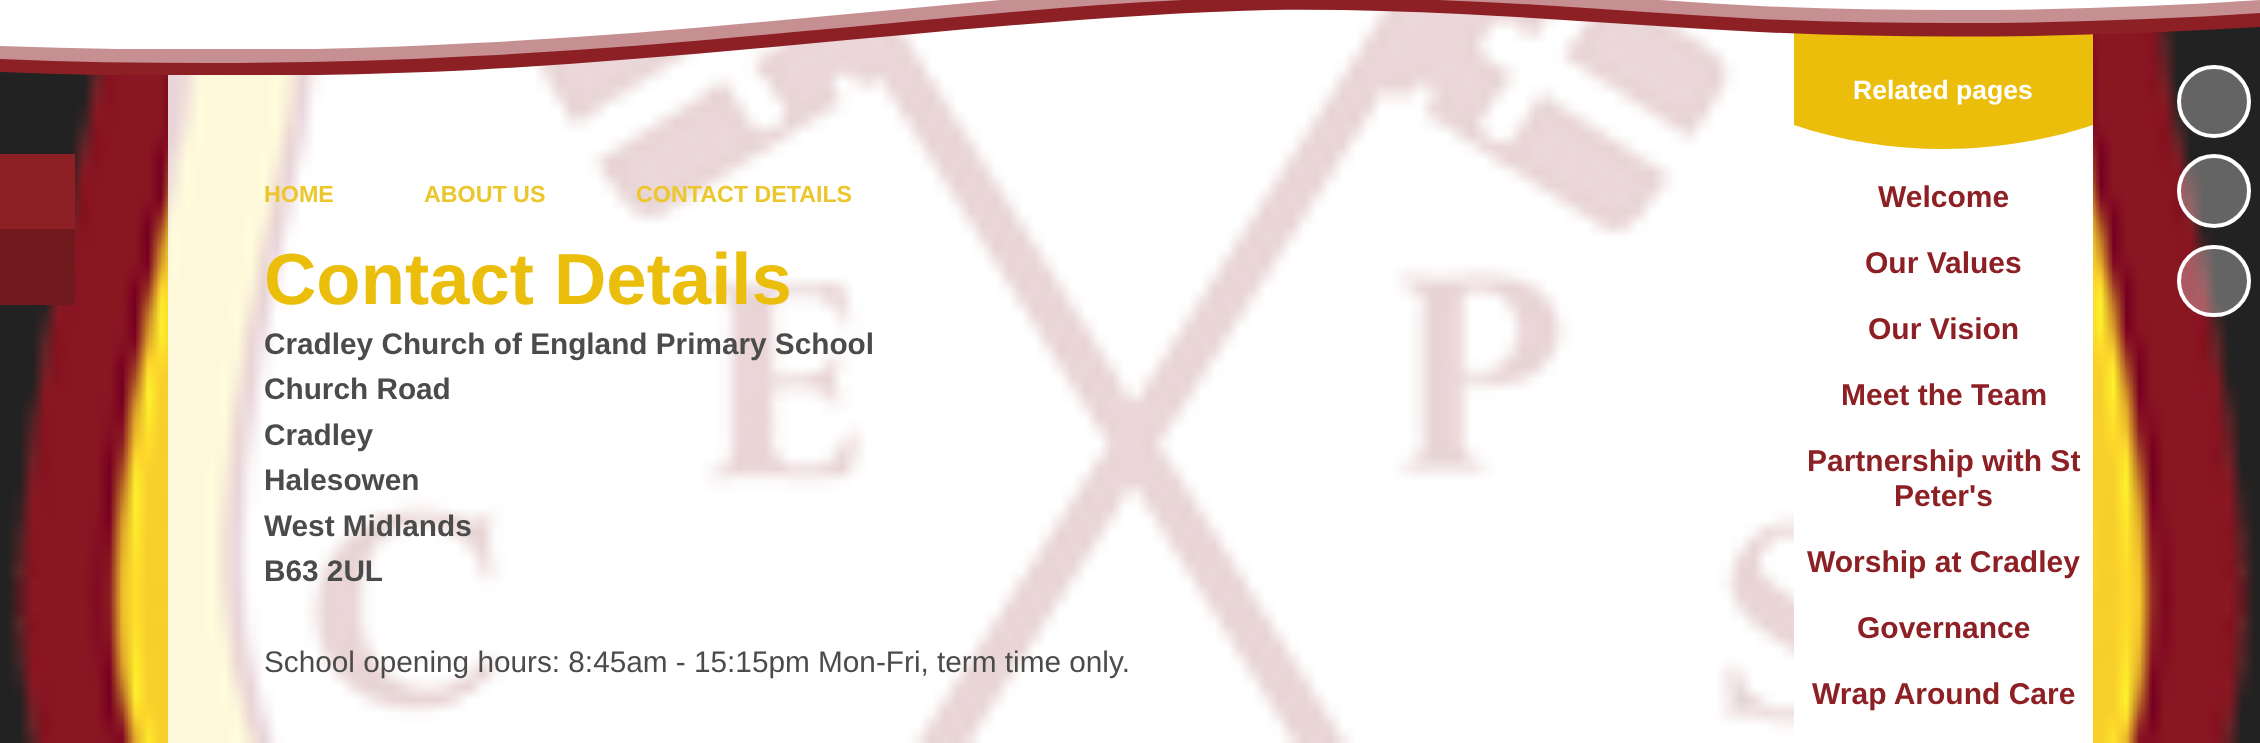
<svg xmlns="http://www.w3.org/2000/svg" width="2260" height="743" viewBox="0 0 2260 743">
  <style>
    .t1 { font: bold 23.25px Liberation Sans; fill: #ecc62d; }
    .t2 { font: bold 72.5px Liberation Sans; fill: #eabe0b; }
    .t3 { font: bold 29.75px Liberation Sans; fill: #4b4b4b; }
    .t4 { font: 29.75px Liberation Sans; fill: #4b4b4b; }
    .t5 { font: bold 26.5px Liberation Sans; fill: #fff; }
    .t6 { font: bold 30px Liberation Sans; fill: #8d2025; }
  </style>
  <defs>
    <clipPath id="clip1"><rect x="0" y="0" width="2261" height="75"/></clipPath>
    <clipPath id="clip2"><rect x="0" y="0" width="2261" height="49"/></clipPath>
    <clipPath id="clip3"><rect x="1794" y="105" width="299" height="44"/></clipPath>
  </defs>
  <rect width="100%" height="100%" fill="#222"/>
  <image x="8" y="9" width="2246" height="734" href="images/1.png"/>
  <rect x="168" y="9" width="1626" height="734" fill="#ffffffd4"/>
  <rect x="1794" y="33" width="299" height="72" fill="#eabe0b"/>
  <rect x="2179" y="67" width="70" height="69" rx="34.5" fill="#ffffff4d" stroke="#fff" stroke-width="4"/>
  <g clip-path="url(#clip1)">
    <path d="M211 76C141 76 70 75 0 72V-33H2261V27C2094 37 1926 40 1759 32C1660 27 1561 19 1461 14C1397 11 1333 9 1269 10C1110 14 952 31 794 45C687 55 581 64 474 70C386 74 298 76 211 76Z" fill="#8d2025"/>
  </g>
  <path d="M211 63C141 63 70 62 0 59V-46H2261V13C2094 24 1926 26 1759 19C1660 14 1561 5 1461 1C1397-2 1333-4 1269-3C1110 0 952 18 794 32C687 42 581 51 474 56C386 61 298 63 211 63Z" fill="#c69092"/>
  <g clip-path="url(#clip2)">
    <path d="M211 50C141 50 70 48 0 46V-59H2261V0C2094 11 1926 13 1759 6C1660 1 1561-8 1461-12C1397-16 1333-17 1269-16C1110-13 952 5 794 19C687 29 581 38 474 43C386 48 298 50 211 50Z" fill="#fff"/>
  </g>
  <rect x="0" y="154" width="75" height="75" fill="#8d2025"/>
  <rect x="0" y="229" width="75" height="76" fill="#711a1e"/>
  <text x="264" y="202" class="t1">HOME</text>
  <text x="424" y="202" class="t1">ABOUT US</text>
  <text x="636" y="202" class="t1">CONTACT DETAILS</text>
  <text x="264" y="304" class="t2">Contact Details</text>
  <text x="264" y="354" class="t3">Cradley Church of England Primary School</text>
  <text x="264" y="399" class="t3">Church Road</text>
  <text x="264" y="445" class="t3">Cradley</text>
  <text x="264" y="490" class="t3">Halesowen</text>
  <text x="264" y="536" class="t3">West Midlands</text>
  <text x="264" y="581" class="t3">B63 2UL</text>
  <text x="264" y="672" class="t4">School opening hours: 8:45am - 15:15pm Mon-Fri, term time only.</text>
  <rect x="1794" y="125" width="299" height="618" fill="#fff"/>
  <text x="1853" y="99" class="t5">Related pages</text>
  <g clip-path="url(#clip3)">
    <path d="M2093 104H1794V125C1890 157 1996 157 2093 125Z" fill="#eabe0b"/>
  </g>
  <text x="1878" y="207" class="t6">Welcome</text>
  <text x="1865" y="273" class="t6">Our Values</text>
  <text x="1868" y="339" class="t6">Our Vision</text>
  <text x="1841" y="405" class="t6">Meet the Team</text>
  <text x="1807" y="471" class="t6">Partnership with St</text>
  <text x="1894" y="506" class="t6">Peter's</text>
  <text x="1807" y="572" class="t6">Worship at Cradley</text>
  <text x="1857" y="638" class="t6">Governance</text>
  <text x="1812" y="704" class="t6">Wrap Around Care</text>
  <circle cx="2214" cy="191" r="35" fill="#ffffff4d" stroke="#fff" stroke-width="4"/>
  <rect x="2179" y="247" width="70" height="68" rx="34" fill="#ffffff4d" stroke="#fff" stroke-width="4"/>
</svg>
